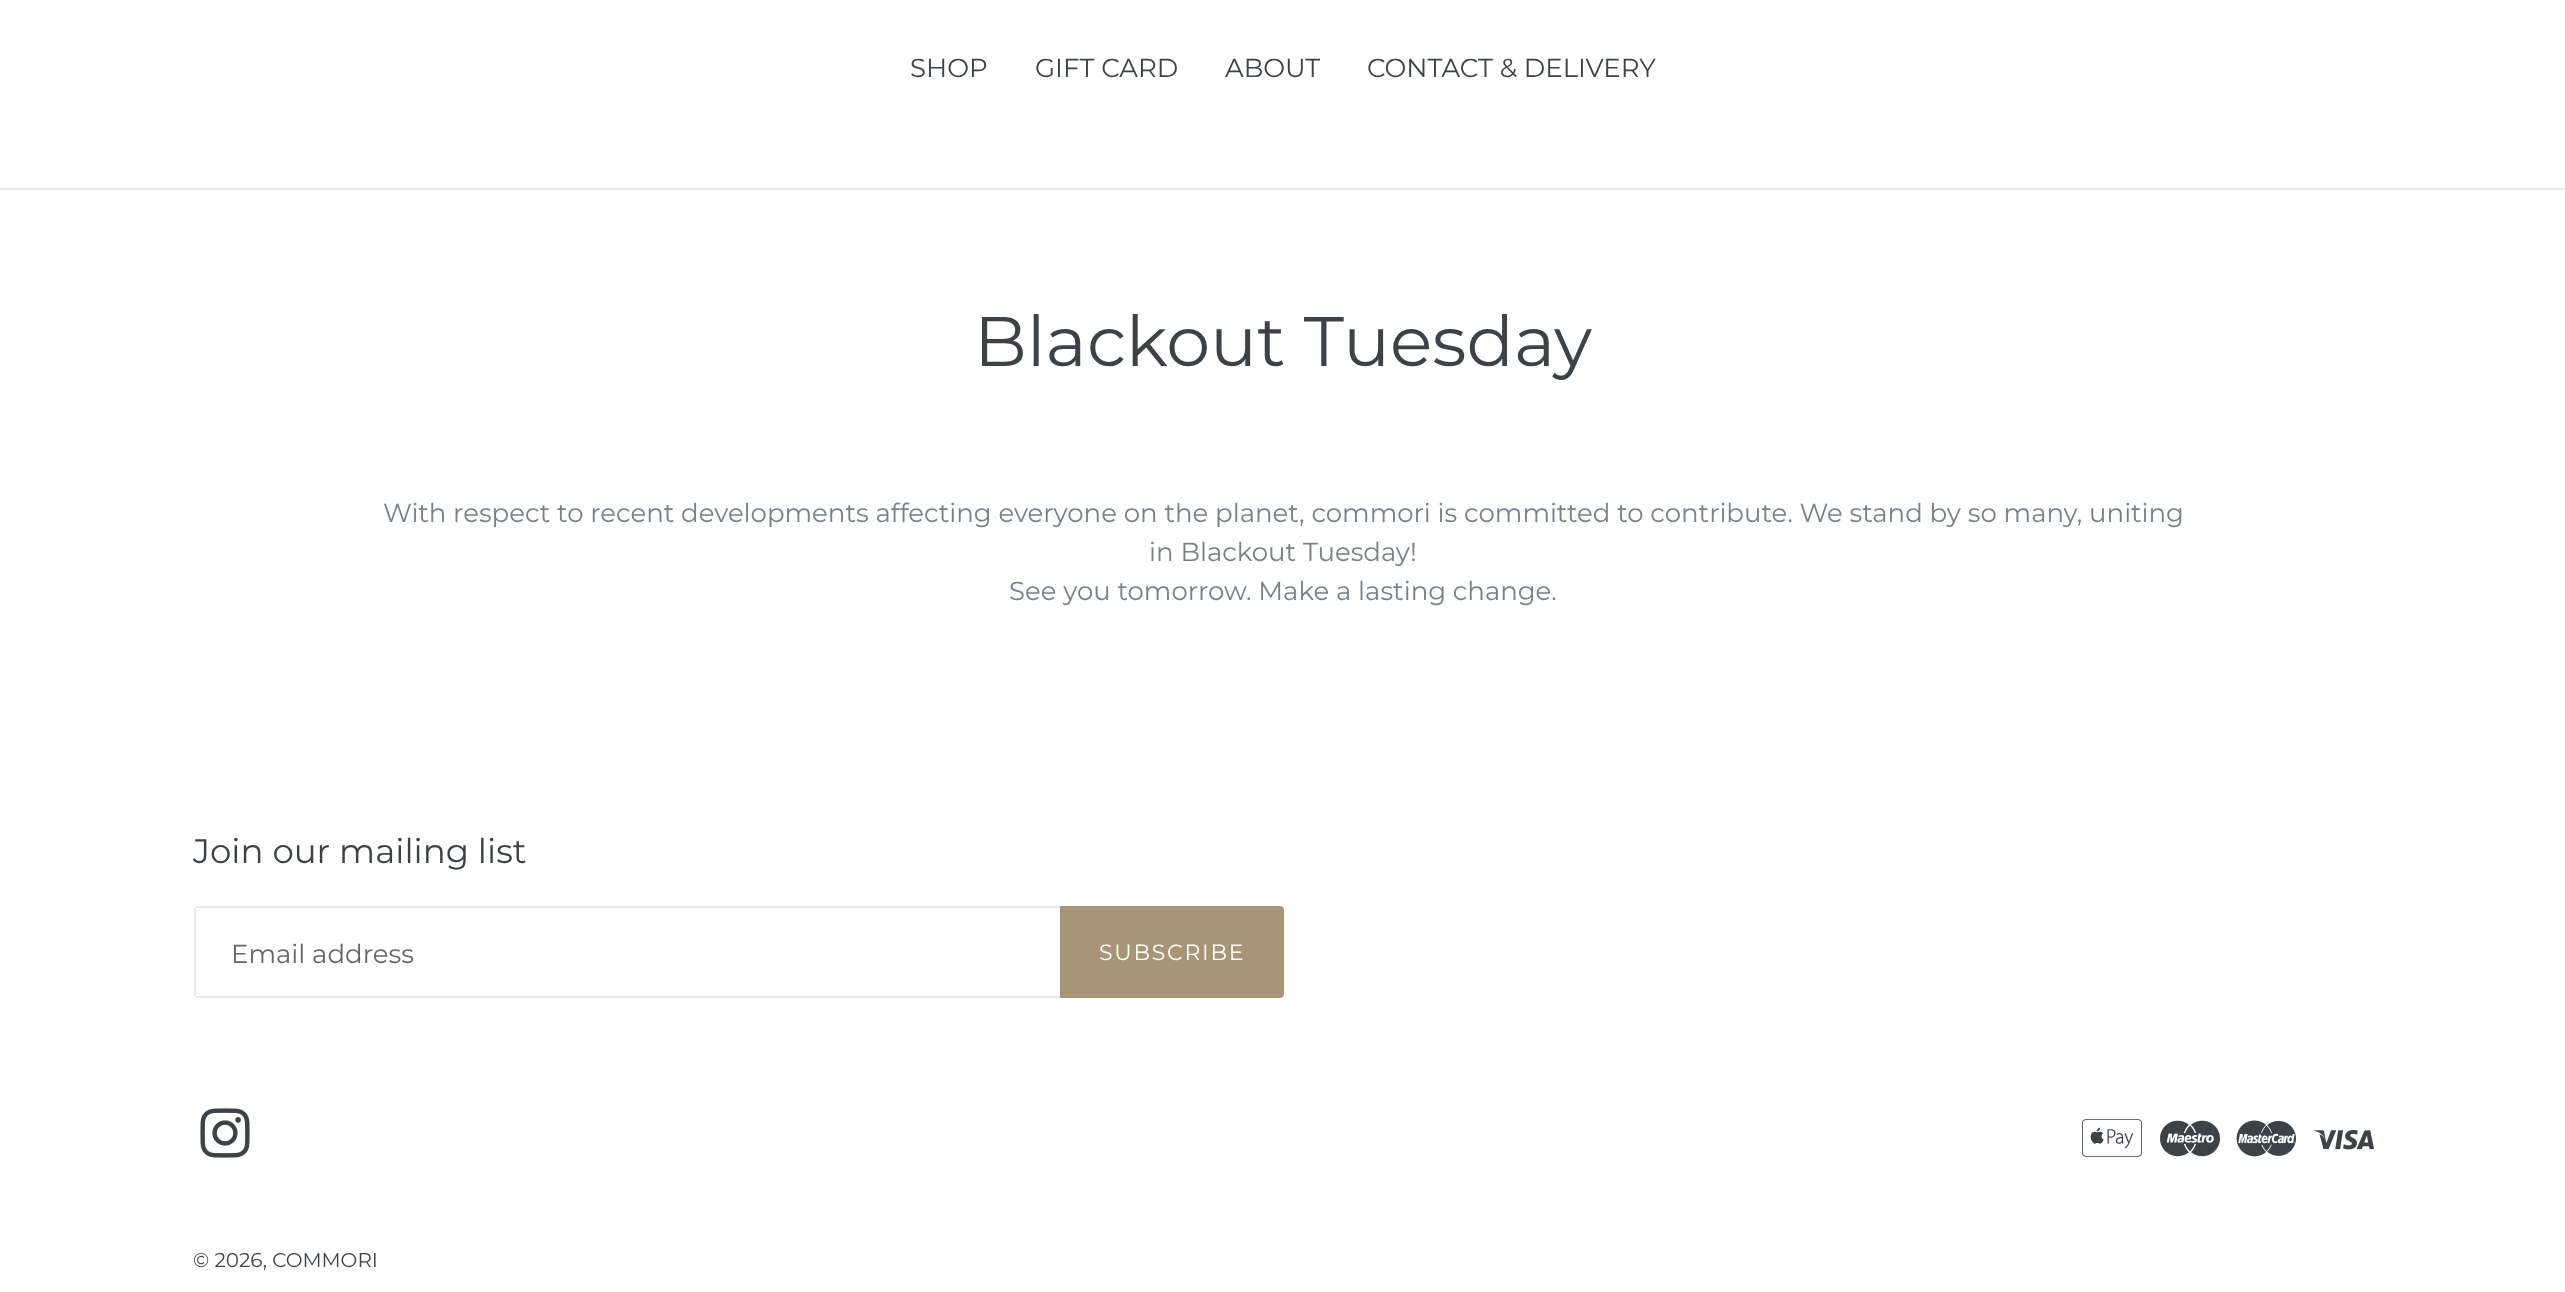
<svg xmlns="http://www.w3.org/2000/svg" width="2565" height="1292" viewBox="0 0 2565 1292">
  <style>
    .t1 { font: 100 26px Montserrat; fill: #3d4246; }
    .t2 { font: 100 70px Montserrat; fill: #3d4246; }
    .t3 { font: 100 26px Montserrat; fill: #788188; }
    .t4 { font: 100 34px Montserrat; fill: #3d4246; }
    .t5 { font: 100 26px Montserrat; fill: #666; }
    .t6 { font: 100 22px Montserrat; letter-spacing: 1.75px; fill: #fff; }
    .t7 { font: 100 20px Montserrat; fill: #3d4246; }
  </style>
  <rect width="100%" height="100%" fill="#fff"/>
  <rect x="0" y="188" width="2565" height="2" fill="#e8e9eb"/>
  <text x="910" y="77" class="t1">SHOP</text>
  <text x="1035" y="77" class="t1">GIFT CARD</text>
  <text x="1225" y="77" class="t1">ABOUT</text>
  <text x="1367" y="77" class="t1">CONTACT &amp; DELIVERY</text>
  <text x="974" y="366" class="t2">Blackout Tuesday</text>
  <text x="383" y="522" class="t3">With respect to recent developments affecting everyone on the planet, commori is committed to contribute. We stand by so many, uniting</text>
  <text x="1149" y="561" class="t3">in Blackout Tuesday!</text>
  <text x="1009" y="600" class="t3">See you tomorrow. Make a lasting change.</text>
  <text x="193" y="863" class="t4">Join our mailing list</text>
  <rect x="196" y="906" width="864" height="2" fill="#e8e9eb"/>
  <rect x="196" y="996" width="864" height="2" fill="#e8e9eb"/>
  <rect x="194" y="908" width="2" height="88" fill="#e8e9eb"/>
  <text x="231" y="963" class="t5">Email address</text>
  <path d="M1060 906H1280C1282 906 1284 908 1284 910V994C1284 996 1282 998 1280 998H1060Z" fill="#a89577"/>
  <text x="1099" y="960" class="t6">SUBSCRIBE</text>
  <image x="200" y="1108" width="50" height="50" href="images/1.png"/>
  <image x="2082" y="1119" width="60" height="38" href="images/2.png"/>
  <image x="2160" y="1120" width="60" height="37" href="images/3.png"/>
  <image x="2236" y="1120" width="60" height="37" href="images/4.png"/>
  <image x="2314" y="1129" width="60" height="21" href="images/5.png"/>
  <text x="193" y="1267" class="t7">© 2026, COMMORI</text>
</svg>
